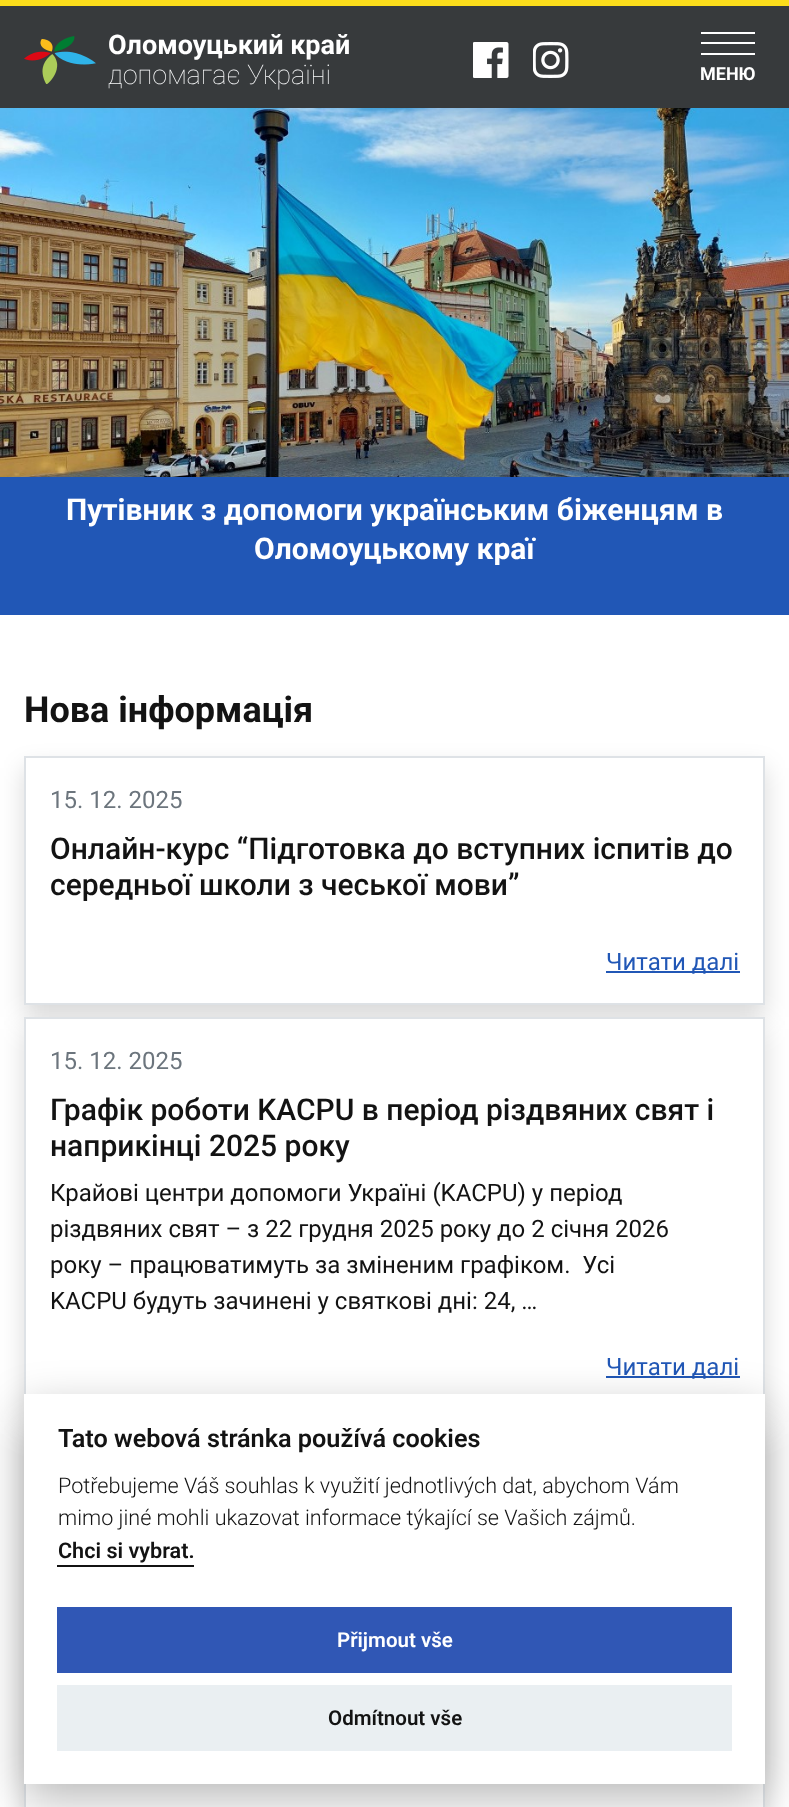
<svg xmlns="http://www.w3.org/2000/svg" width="789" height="1807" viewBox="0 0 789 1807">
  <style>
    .t1 { font: bold 27px Roboto; fill: #fff; }
    .t2 { font: 100 27px Roboto; fill: #f8f9fa; }
    .t3 { font: bold 18px Roboto; fill: #fff; }
    .t4 { font: bold 30px Roboto; fill: #fff; }
    .t5 { font: bold 36px Roboto; fill: #131313; }
    .t6 { font: 24px Roboto; fill: #6c757d; }
    .t7 { font: 500 30px Roboto; fill: #131313; }
    .t8 { font: 24px Roboto; fill: #2157b6; }
    .t9 { font: 24px Roboto; fill: #131313; }
    .t10 { font: 600 25.25px Roboto; fill: #131313; }
    .t11 { font: 300 21.6px Roboto; fill: #131313; }
    .t12 { font: 600 21.6px Roboto; fill: #131313; }
    .t13 { font: 600 20.5px Roboto; fill: #fff; }
    .t14 { font: 600 20.5px Roboto; fill: #131313; }
  </style>
  <defs>
    <clipPath id="clip1"><path d="M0 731H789V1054H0ZM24 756H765V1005H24Z" clip-rule="evenodd"/></clipPath>
  </defs>
  <rect width="100%" height="100%" fill="#fff"/>
  <rect x="0" y="6" width="789" height="102" fill="#373a3c"/>
  <rect x="0" y="0" width="789" height="6" fill="#fbdd1b"/>
  <image x="24" y="36" width="72" height="48" href="images/1.png"/>
  <text x="108" y="54" class="t1">Оломоуцький край</text>
  <text x="108" y="84" class="t2">допомагає Україні</text>
  <image x="473" y="42" width="36" height="36" href="images/2.png"/>
  <image x="533" y="42" width="36" height="36" href="images/3.png"/>
  <rect x="701" y="32" width="54" height="2" fill="#fff"/>
  <rect x="701" y="42" width="54" height="2" fill="#fff"/>
  <rect x="701" y="53" width="54" height="2" fill="#fff"/>
  <text x="700" y="80" class="t3">МЕНЮ</text>
  <image x="0" y="108" width="789" height="369" href="images/4.png"/>
  <rect x="0" y="477" width="789" height="138" fill="#2157b6"/>
  <text x="66" y="520" class="t4">Путівник з допомоги українським біженцям в</text>
  <text x="254" y="559" class="t4">Оломоуцькому краї</text>
  <text x="24" y="722" class="t5">Нова інформація</text>
  <g clip-path="url(#clip1)">
    <rect x="24" y="768" width="741" height="249" fill="#00000026" filter="blur(12px)"/>
  </g>
  <rect x="25" y="757" width="739" height="247" fill="none" stroke="#dee2e6" stroke-width="2"/>
  <text x="50" y="808" class="t6">15. 12. 2025</text>
  <text x="50" y="859" class="t7">Онлайн-курс “Підготовка до вступних іспитів до</text>
  <text x="50" y="895" class="t7">середньої школи з чеської мови”</text>
  <rect x="606" y="971" width="134" height="2" fill="#2157b6"/>
  <text x="606" y="970" class="t8">Читати далі</text>
  <rect x="24" y="1029" width="741" height="393" fill="#00000026" filter="blur(12px)"/>
  <rect x="26" y="1019" width="737" height="375" fill="#fff"/>
  <rect x="25" y="1018" width="739" height="391" fill="none" stroke="#dee2e6" stroke-width="2"/>
  <text x="50" y="1069" class="t6">15. 12. 2025</text>
  <text x="50" y="1120" class="t7">Графік роботи KACPU в період різдвяних свят і</text>
  <text x="50" y="1156" class="t7">наприкінці 2025 року</text>
  <text x="50" y="1201" class="t9">Крайові центри допомоги Україні (KACPU) у період</text>
  <text x="50" y="1237" class="t9">різдвяних свят – з 22 грудня 2025 року до 2 січня 2026</text>
  <text x="50" y="1273" class="t9" xml:space="preserve">року – працюватимуть за зміненим графіком.  Усі</text>
  <text x="50" y="1309" class="t9">KACPU будуть зачинені у святкові дні: 24, …</text>
  <rect x="606" y="1376" width="134" height="2" fill="#2157b6"/>
  <text x="606" y="1375" class="t8">Читати далі</text>
  <rect x="24" y="1434" width="741" height="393" fill="#00000026" filter="blur(12px)"/>
  <rect x="26" y="1784" width="737" height="23" fill="#fff"/>
  <rect x="25" y="1423" width="739" height="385" fill="none" stroke="#dee2e6" stroke-width="2"/>
  <rect x="24" y="1409" width="741" height="390" fill="#02020347" filter="blur(22.5px)"/>
  <rect x="24" y="1394" width="741" height="390" fill="#fff"/>
  <text x="58" y="1447" class="t10">Tato webová stránka používá cookies</text>
  <text x="58" y="1493" class="t11">Potřebujeme Váš souhlas k využití jednotlivých dat, abychom Vám</text>
  <text x="58" y="1525" class="t11">mimo jiné mohli ukazovat informace týkající se Vašich zájmů.</text>
  <text x="58" y="1558" class="t12">Chci si vybrat.</text>
  <rect x="57" y="1565" width="137" height="2" fill="#131313"/>
  <rect x="57" y="1607" width="675" height="66" fill="#3057b5"/>
  <text x="337" y="1647" class="t13">Přijmout vše</text>
  <rect x="57" y="1685" width="675" height="66" fill="#eaeff2"/>
  <text x="328" y="1725" class="t14">Odmítnout vše</text>
</svg>
